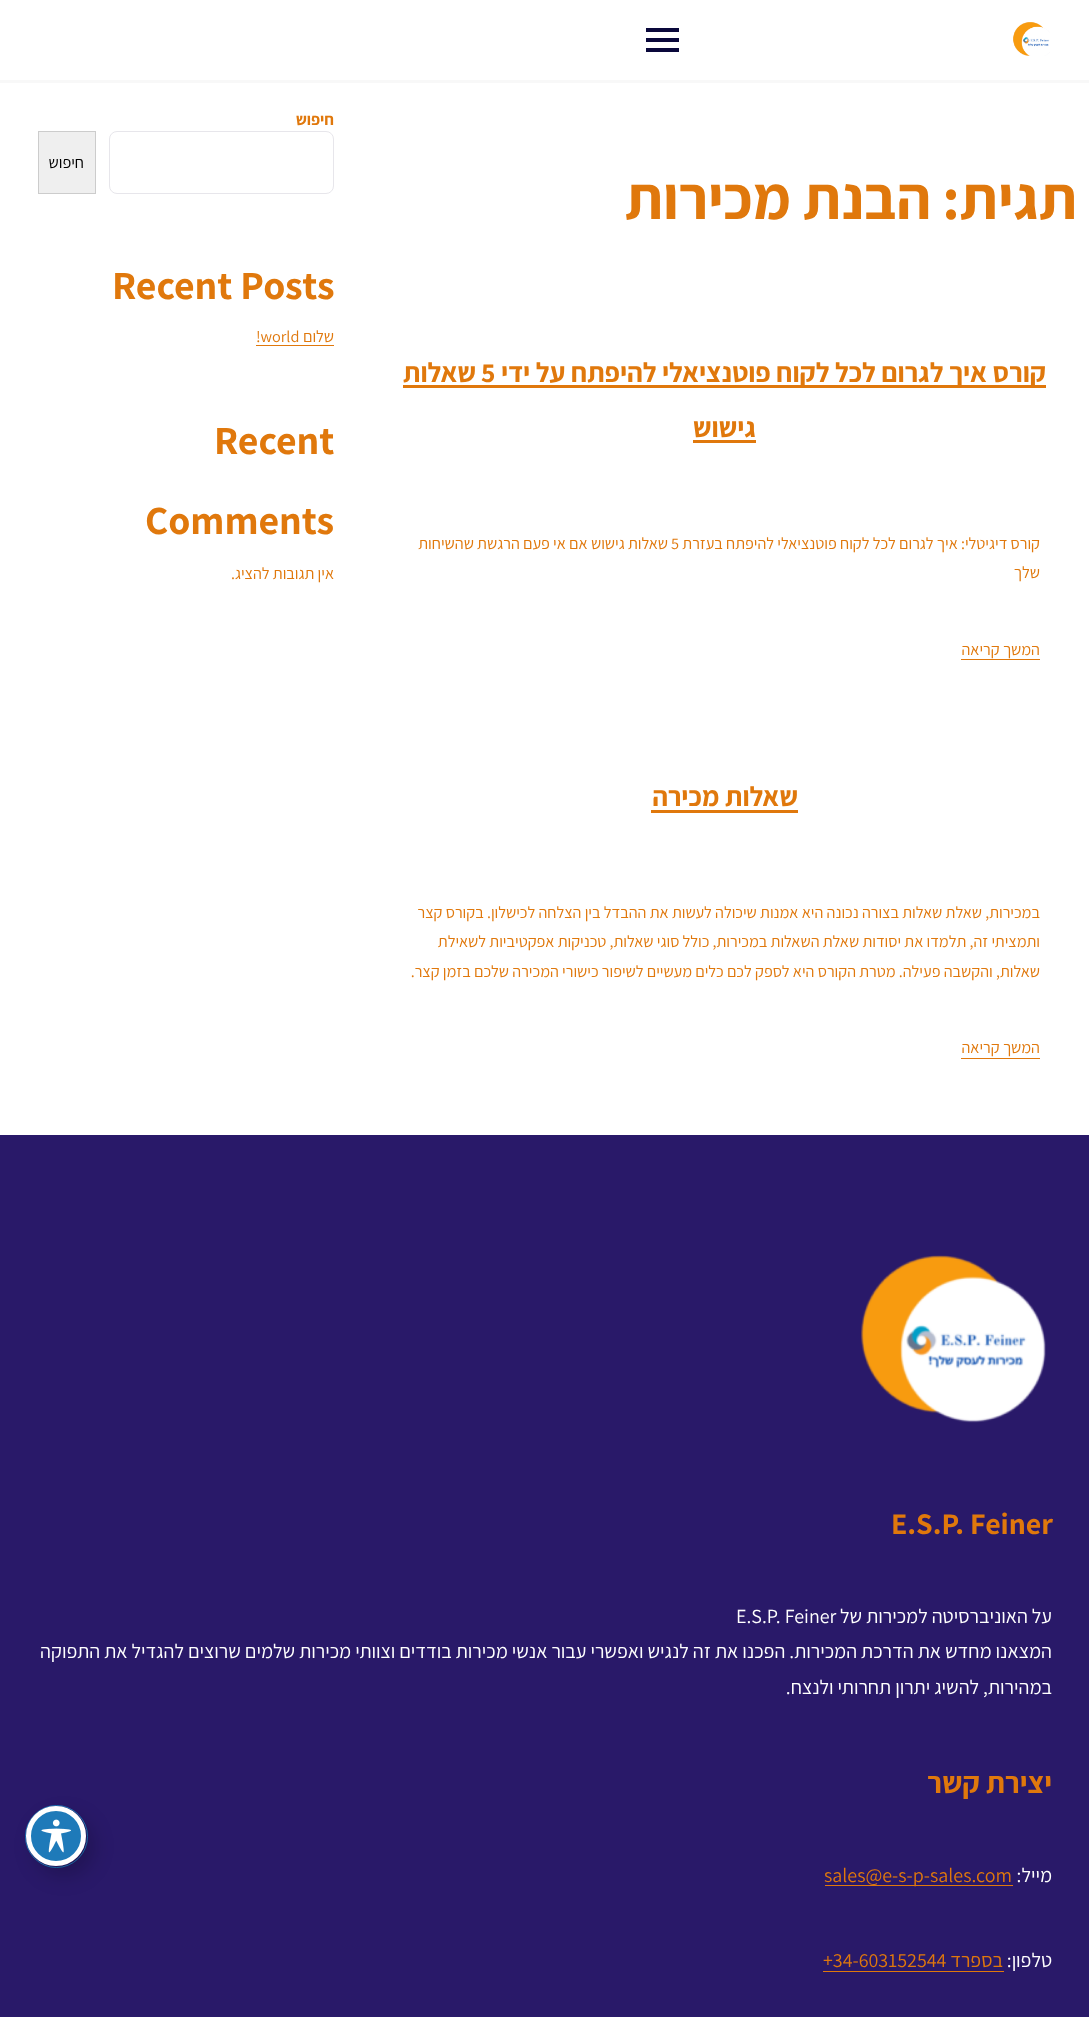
<svg xmlns="http://www.w3.org/2000/svg" width="1089" height="2017" viewBox="0 0 1089 2017">
  <style>
    .t1 { font: bold 60px Assistant; direction: rtl; fill: #e0780c; }
    .t2 { font: bold 27.5px Assistant; direction: rtl; fill: #e0780c; }
    .t3 { font: bold 27.5px Assistant; fill: #e0780c; }
    .t4 { font: 16.25px Assistant; direction: rtl; fill: #e0780c; }
    .t5 { font: 16.25px Assistant; fill: #e0780c; }
    .t6 { font: bold 16.25px Assistant; direction: rtl; fill: #e0780c; }
    .t7 { font: 16.25px Assistant; direction: rtl; fill: #000; }
    .t8 { font: bold 40px Assistant; fill: #e0780c; }
    .t9 { font: bold 30px Assistant; fill: #e0780c; }
    .t10 { font: 20px Assistant; direction: rtl; fill: #fff; }
    .t11 { font: 20px Assistant; fill: #fff; }
    .t12 { font: bold 30px Assistant; direction: rtl; fill: #e0780c; }
    .t13 { font: 20px Assistant; fill: #e0780c; }
    .t14 { font: 20px Assistant; direction: rtl; fill: #e0780c; }
  </style>
  <rect width="100%" height="100%" fill="#fff"/>
  <rect x="0" y="80" width="1089" height="3" fill="#f8f8f8"/>
  <image x="1013" y="22" width="37" height="34" href="images/1.png"/>
  <rect x="646" y="38" width="33" height="4" fill="#0a083b"/>
  <rect x="646" y="28" width="33" height="4" fill="#0a083b"/>
  <rect x="646" y="48" width="33" height="4" fill="#0a083b"/>
  <text x="1077" y="219" class="t1">תגית:</text>
  <text x="931" y="219" class="t1">הבנת מכירות</text>
  <rect x="403" y="385" width="643" height="3" fill="#e0780c"/>
  <text x="1046" y="382" class="t2">קורס איך לגרום לכל לקוח פוטנציאלי להיפתח על ידי</text>
  <text x="481" y="382" class="t3">5</text>
  <text x="476" y="382" class="t2">שאלות</text>
  <text x="756" y="437" class="t2">גישוש</text>
  <rect x="693" y="440" width="63" height="3" fill="#e0780c"/>
  <text x="1040" y="549" class="t4">קורס דיגיטלי: איך לגרום לכל לקוח פוטנציאלי להיפתח בעזרת</text>
  <text x="671" y="549" class="t5">5</text>
  <text x="668" y="549" class="t4">שאלות גישוש אם אי פעם הרגשת שהשיחות</text>
  <text x="1040" y="578" class="t4">שלך</text>
  <text x="1040" y="655" class="t4">המשך קריאה</text>
  <rect x="961" y="659" width="79" height="1" fill="#e0780c"/>
  <text x="798" y="806" class="t2">שאלות מכירה</text>
  <rect x="651" y="810" width="147" height="3" fill="#e0780c"/>
  <text x="1040" y="918" class="t4">במכירות, שאלת שאלות בצורה נכונה היא אמנות שיכולה לעשות את ההבדל בין הצלחה לכישלון. בקורס קצר</text>
  <text x="1040" y="947" class="t4">ותמציתי זה, תלמדו את יסודות שאלת השאלות במכירות, כולל סוגי שאלות, טכניקות אפקטיביות לשאילת</text>
  <text x="1040" y="977" class="t4">שאלות, והקשבה פעילה. מטרת הקורס היא לספק לכם כלים מעשיים לשיפור כישורי המכירה שלכם בזמן קצר.</text>
  <text x="1040" y="1053" class="t4">המשך קריאה</text>
  <rect x="961" y="1058" width="79" height="1" fill="#e0780c"/>
  <text x="334" y="125" class="t6">חיפוש</text>
  <rect x="109.5" y="131.5" width="224" height="62" rx="7.5" fill="none" stroke="#e7e6eb"/>
  <rect x="38.5" y="131.5" width="57" height="62" fill="#efefef" stroke="#ccc"/>
  <text x="84" y="168" class="t7">חיפוש</text>
  <text x="112" y="299" class="t8">Recent Posts</text>
  <text x="334" y="342" class="t4">שלום</text>
  <text x="256" y="342" class="t5">!world</text>
  <rect x="256" y="345" width="78" height="1" fill="#e0780c"/>
  <text x="214" y="454" class="t8">Recent</text>
  <text x="145" y="534" class="t8">Comments</text>
  <text x="334" y="579" class="t4">אין תגובות להציג.</text>
  <rect x="0" y="1135" width="1089" height="882" fill="#291969"/>
  <image x="861" y="1255" width="185" height="168" href="images/2.png"/>
  <text x="891" y="1534" class="t9">E.S.P. Feiner</text>
  <text x="1052" y="1623" class="t10">על האוניברסיטה למכירות של</text>
  <text x="736" y="1623" class="t11">E.S.P. Feiner</text>
  <text x="1052" y="1658" class="t10">המצאנו מחדש את הדרכת המכירות. הפכנו את זה לנגיש ואפשרי עבור אנשי מכירות בודדים וצוותי מכירות שלמים שרוצים להגדיל את התפוקה</text>
  <text x="1052" y="1694" class="t10">במהירות, להשיג יתרון תחרותי ולנצח.</text>
  <text x="1052" y="1793" class="t12">יצירת קשר</text>
  <text x="1052" y="1882" class="t10">מייל:</text>
  <rect x="825" y="1885" width="188" height="1" fill="#e0780c"/>
  <text x="824" y="1882" class="t13">sales@e-s-p-sales.com</text>
  <text x="1052" y="1967" class="t10">טלפון:</text>
  <text x="1003" y="1967" class="t14">בספרד</text>
  <rect x="823" y="1971" width="181" height="1" fill="#e0780c"/>
  <text x="823" y="1967" class="t13">+34-603152544</text>
  <circle cx="56.5" cy="1836.5" r="31" fill="none" stroke="#1e7ab9"/>
  <rect x="34" y="1816" width="60" height="60" rx="30" fill="#00000033" filter="blur(10px)"/>
  <circle cx="56" cy="1836" r="27.5" fill="#1e7ab9" stroke="#fff" stroke-width="5"/>
  <image x="41" y="1819" width="30" height="34" href="images/3.png"/>
</svg>
